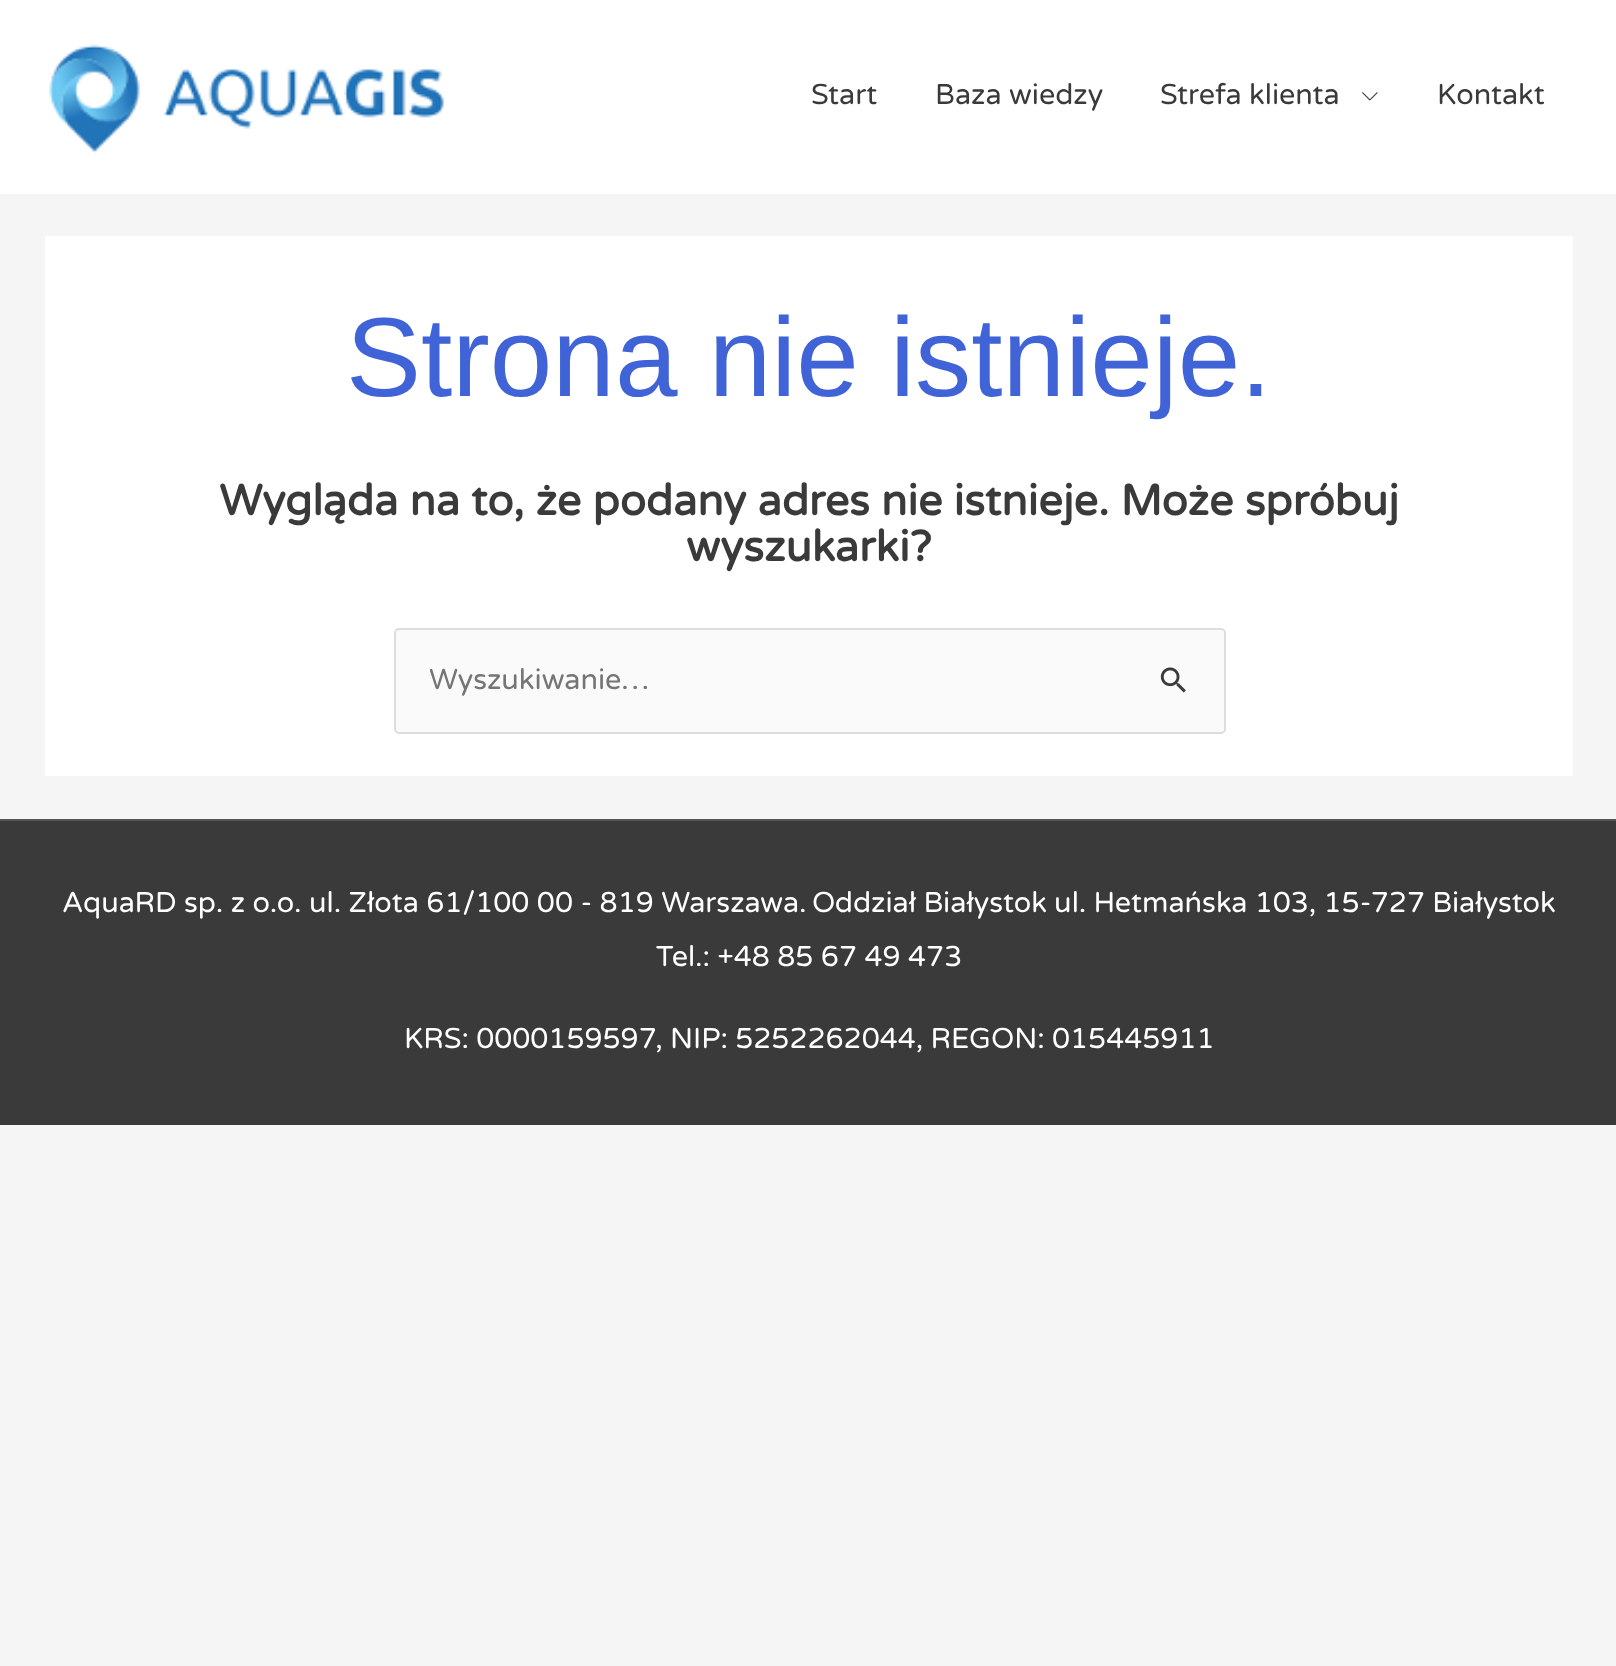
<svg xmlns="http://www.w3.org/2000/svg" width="1616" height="1666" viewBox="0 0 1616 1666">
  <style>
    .t1 { font: 28.75px Varela Round; fill: #3a3a3a; }
    .t2 { font: 112.5px Liberation Sans; fill: #4064d7; }
    .t3 { font: bold 43.1px Varela Round; fill: #3a3a3a; }
    .t4 { font: 28.75px Varela Round; fill: #757575; }
    .t5 { font: 28.75px Varela Round; fill: #fff; }
  </style>
  <defs>
    <clipPath id="clip1"><rect x="430" y="662" width="684" height="36"/></clipPath>
  </defs>
  <rect width="100%" height="100%" fill="#f5f5f5"/>
  <rect x="0" y="0" width="1616" height="194" fill="#fff"/>
  <image x="49" y="44" width="395" height="110" href="images/1.png"/>
  <text x="811" y="104" class="t1">Start</text>
  <text x="935" y="104" class="t1">Baza wiedzy</text>
  <text x="1160" y="104" class="t1">Strefa klienta</text>
  <image x="1362" y="92" width="16" height="9" href="images/2.png"/>
  <text x="1437" y="104" class="t1">Kontakt</text>
  <rect x="45" y="236" width="1528" height="540" fill="#fff"/>
  <text x="346" y="396" class="t2">Strona nie istnieje.</text>
  <text x="219" y="515" class="t3">Wygląda na to, że podany adres nie istnieje. Może spróbuj</text>
  <text x="686" y="561" class="t3">wyszukarki?</text>
  <rect x="395" y="629" width="830" height="104" rx="4" fill="#fafafa" stroke="#ddd" stroke-width="2"/>
  <g clip-path="url(#clip1)">
    <text x="429" y="689" class="t4">Wyszukiwanie…</text>
  </g>
  <image x="1160" y="667" width="26" height="26" href="images/3.png"/>
  <rect x="0" y="819" width="1616" height="2" fill="#545454"/>
  <rect x="0" y="821" width="1616" height="304" fill="#3a3a3a"/>
  <text x="62" y="912" class="t5">AquaRD sp. z o.o. ul. Złota 61/100 00 - 819 Warszawa.</text>
  <text x="812" y="912" word-spacing="-0.25" class="t5">Oddział Białystok ul. Hetmańska 103, 15-727 Białystok</text>
  <text x="656" y="966" class="t5">Tel.: +48 85 67 49 473</text>
  <text x="404" y="1048" word-spacing="-0.25" class="t5">KRS: 0000159597, NIP: 5252262044, REGON: 015445911</text>
</svg>
